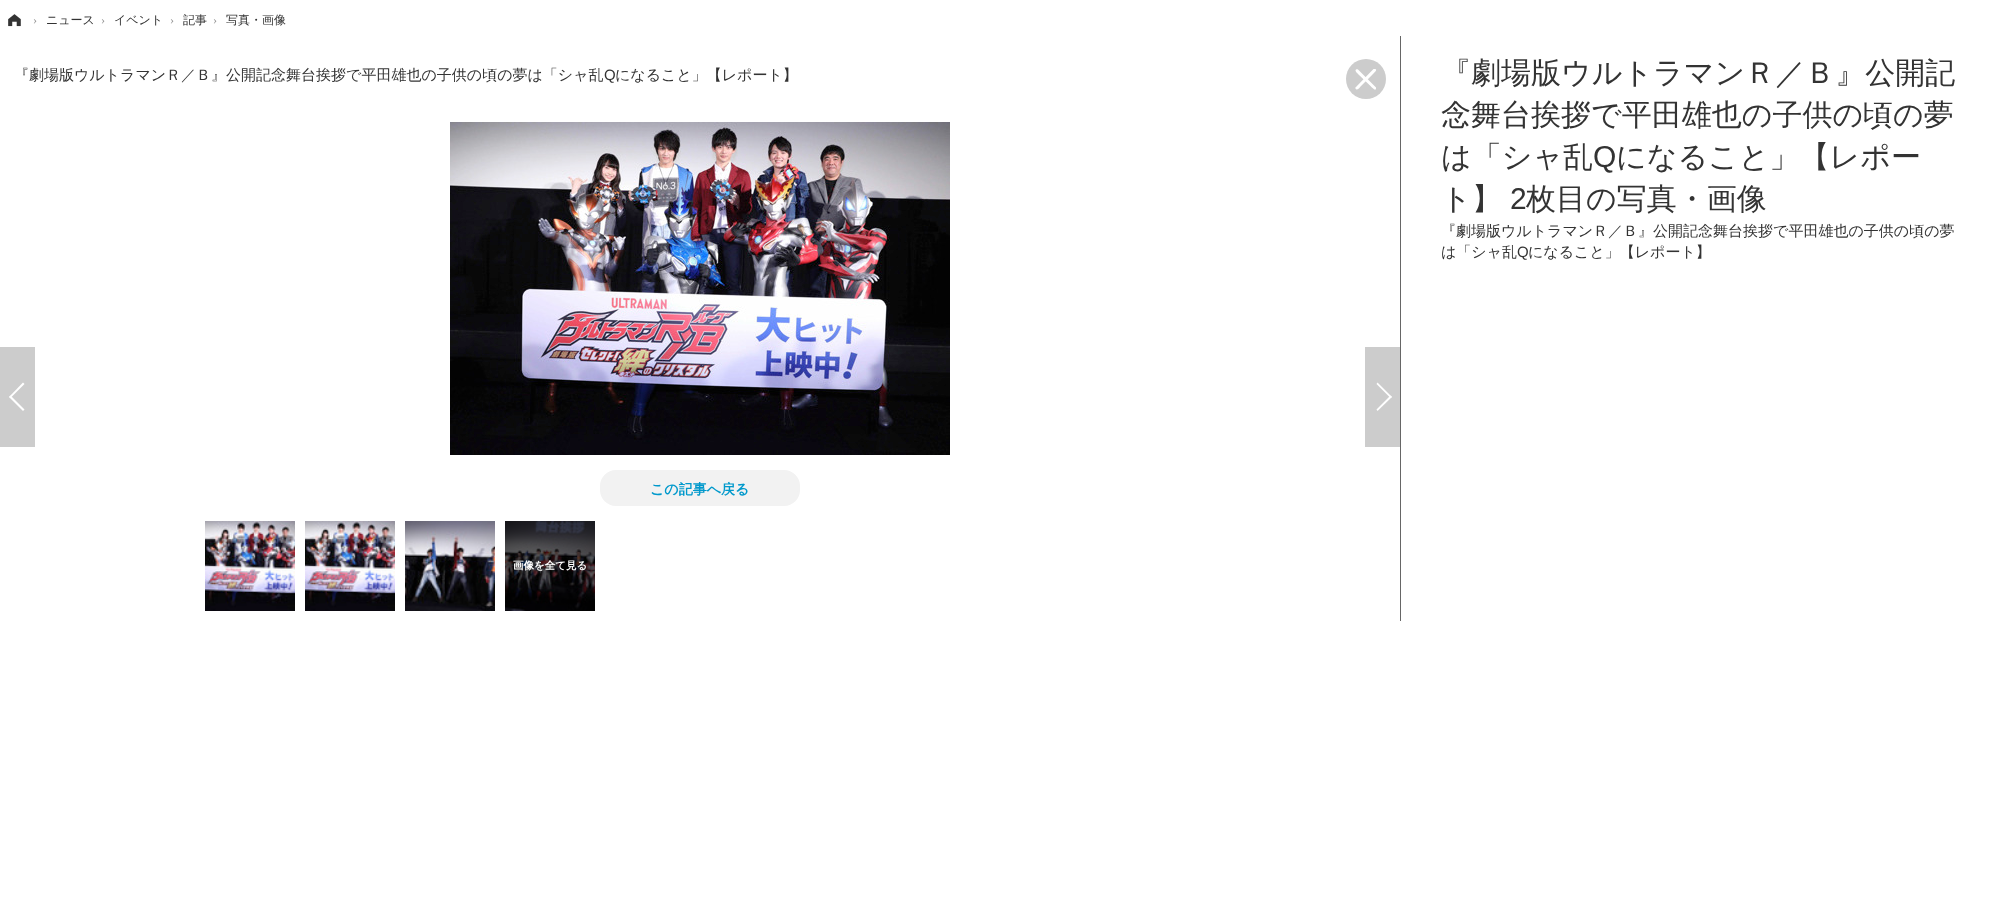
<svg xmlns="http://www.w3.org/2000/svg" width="2001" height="922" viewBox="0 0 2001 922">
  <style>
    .t1 { font: 12px Liberation Serif; fill: #999; }
    .t2 { font: 500 12px WenQuanYi Zen Hei; fill: #333; }
    .t3 { font: 500 15px WenQuanYi Zen Hei; fill: #333; }
    .t4 { font: 15px Liberation Sans; fill: #333; }
    .t5 { font: bold 14px WenQuanYi Zen Hei; fill: #09c; }
    .t6 { font: bold 10.5px WenQuanYi Zen Hei; fill: #fff; }
    .t7 { font: 500 30px WenQuanYi Zen Hei; fill: #333; }
    .t8 { font: 30px Liberation Sans; fill: #333; }
  </style>
  <rect width="100%" height="100%" fill="#fff"/>
  <image x="8" y="14" width="13" height="13" href="images/1.png"/>
  <text x="33" y="24" class="t1">›</text>
  <text x="46" y="24" class="t2">ニュース</text>
  <text x="101" y="24" class="t1">›</text>
  <text x="114" y="24" class="t2">イベント</text>
  <text x="170" y="24" class="t1">›</text>
  <text x="183" y="24" class="t2">記事</text>
  <text x="213" y="24" class="t1">›</text>
  <text x="226" y="24" class="t2">写真・画像</text>
  <rect x="1400" y="36" width="1" height="585" fill="#666"/>
  <text x="14" y="80" class="t3">『劇場版ウルトラマンＲ／Ｂ』公開記念舞台挨拶で平田雄也の子供の頃の夢は「シャ乱</text>
  <text x="604" y="80" class="t4">Q</text>
  <text x="615" y="80" class="t3">になること」【レポート】</text>
  <circle cx="1366" cy="79" r="20" fill="#ccc"/>
  <path d="M1356 87L1373.5 69H1375C1378 69.5 1374.5 72.5 1372.5 74.5L1361 86C1360.5 86.5 1357.5 91 1356 89C1355 88.5 1355 87.5 1356 87Z" fill="#fff"/>
  <path d="M1358 69.5L1376 87.5V88.5C1375.5 91.5 1372.5 88 1370.5 86L1358.5 74.5C1358.5 74 1354 71 1356 69.5C1356.5 69 1357.5 69 1358 69.5Z" fill="#fff"/>
  <image x="450" y="122" width="500" height="333" href="images/2.png"/>
  <rect x="0" y="347" width="35" height="100" fill="#ccc"/>
  <path d="M23 411L9 397L10.5 395.5L24.5 409.5Z" fill="#fff"/>
  <path d="M10.5 398L9 397L23 382.5L24.5 384Z" fill="#fff"/>
  <rect x="1365" y="347" width="35" height="100" fill="#ccc"/>
  <path d="M1377.5 382.5L1392 397L1390.5 398L1376.5 384Z" fill="#fff"/>
  <path d="M1390.5 395.5L1392 397L1377.5 411L1376.5 409.5Z" fill="#fff"/>
  <rect x="601" y="471" width="198" height="34" rx="15" fill="#f2f2f2" stroke="#f2f2f2" stroke-width="2"/>
  <text x="650" y="494" class="t5">この記事へ戻る</text>
  <image x="205" y="521" width="90" height="90" href="images/3.png"/>
  <image x="305" y="521" width="90" height="90" href="images/4.png"/>
  <image x="405" y="521" width="90" height="90" href="images/5.png"/>
  <image x="505" y="521" width="90" height="90" href="images/6.png"/>
  <text x="513" y="569" class="t6">画像を全て見る</text>
  <text x="1441" y="83" class="t7">『劇場版ウルトラマンＲ／Ｂ』公開記</text>
  <text x="1441" y="125" class="t7">念舞台挨拶で平田雄也の子供の頃の夢</text>
  <text x="1441" y="167" class="t7">は「シャ乱</text>
  <text x="1593" y="167" class="t8">Q</text>
  <text x="1616" y="167" class="t7">になること」【レポー</text>
  <text x="1441" y="209" class="t7">ト】</text>
  <text x="1510" y="209" class="t8">2</text>
  <text x="1526" y="209" class="t7">枚目の写真・画像</text>
  <text x="1441" y="236" class="t3">『劇場版ウルトラマンＲ／Ｂ』公開記念舞台挨拶で平田雄也の子供の頃の夢</text>
  <text x="1441" y="257" class="t3">は「シャ乱</text>
  <text x="1517" y="257" class="t4">Q</text>
  <text x="1528" y="257" class="t3">になること」【レポート】</text>
</svg>
